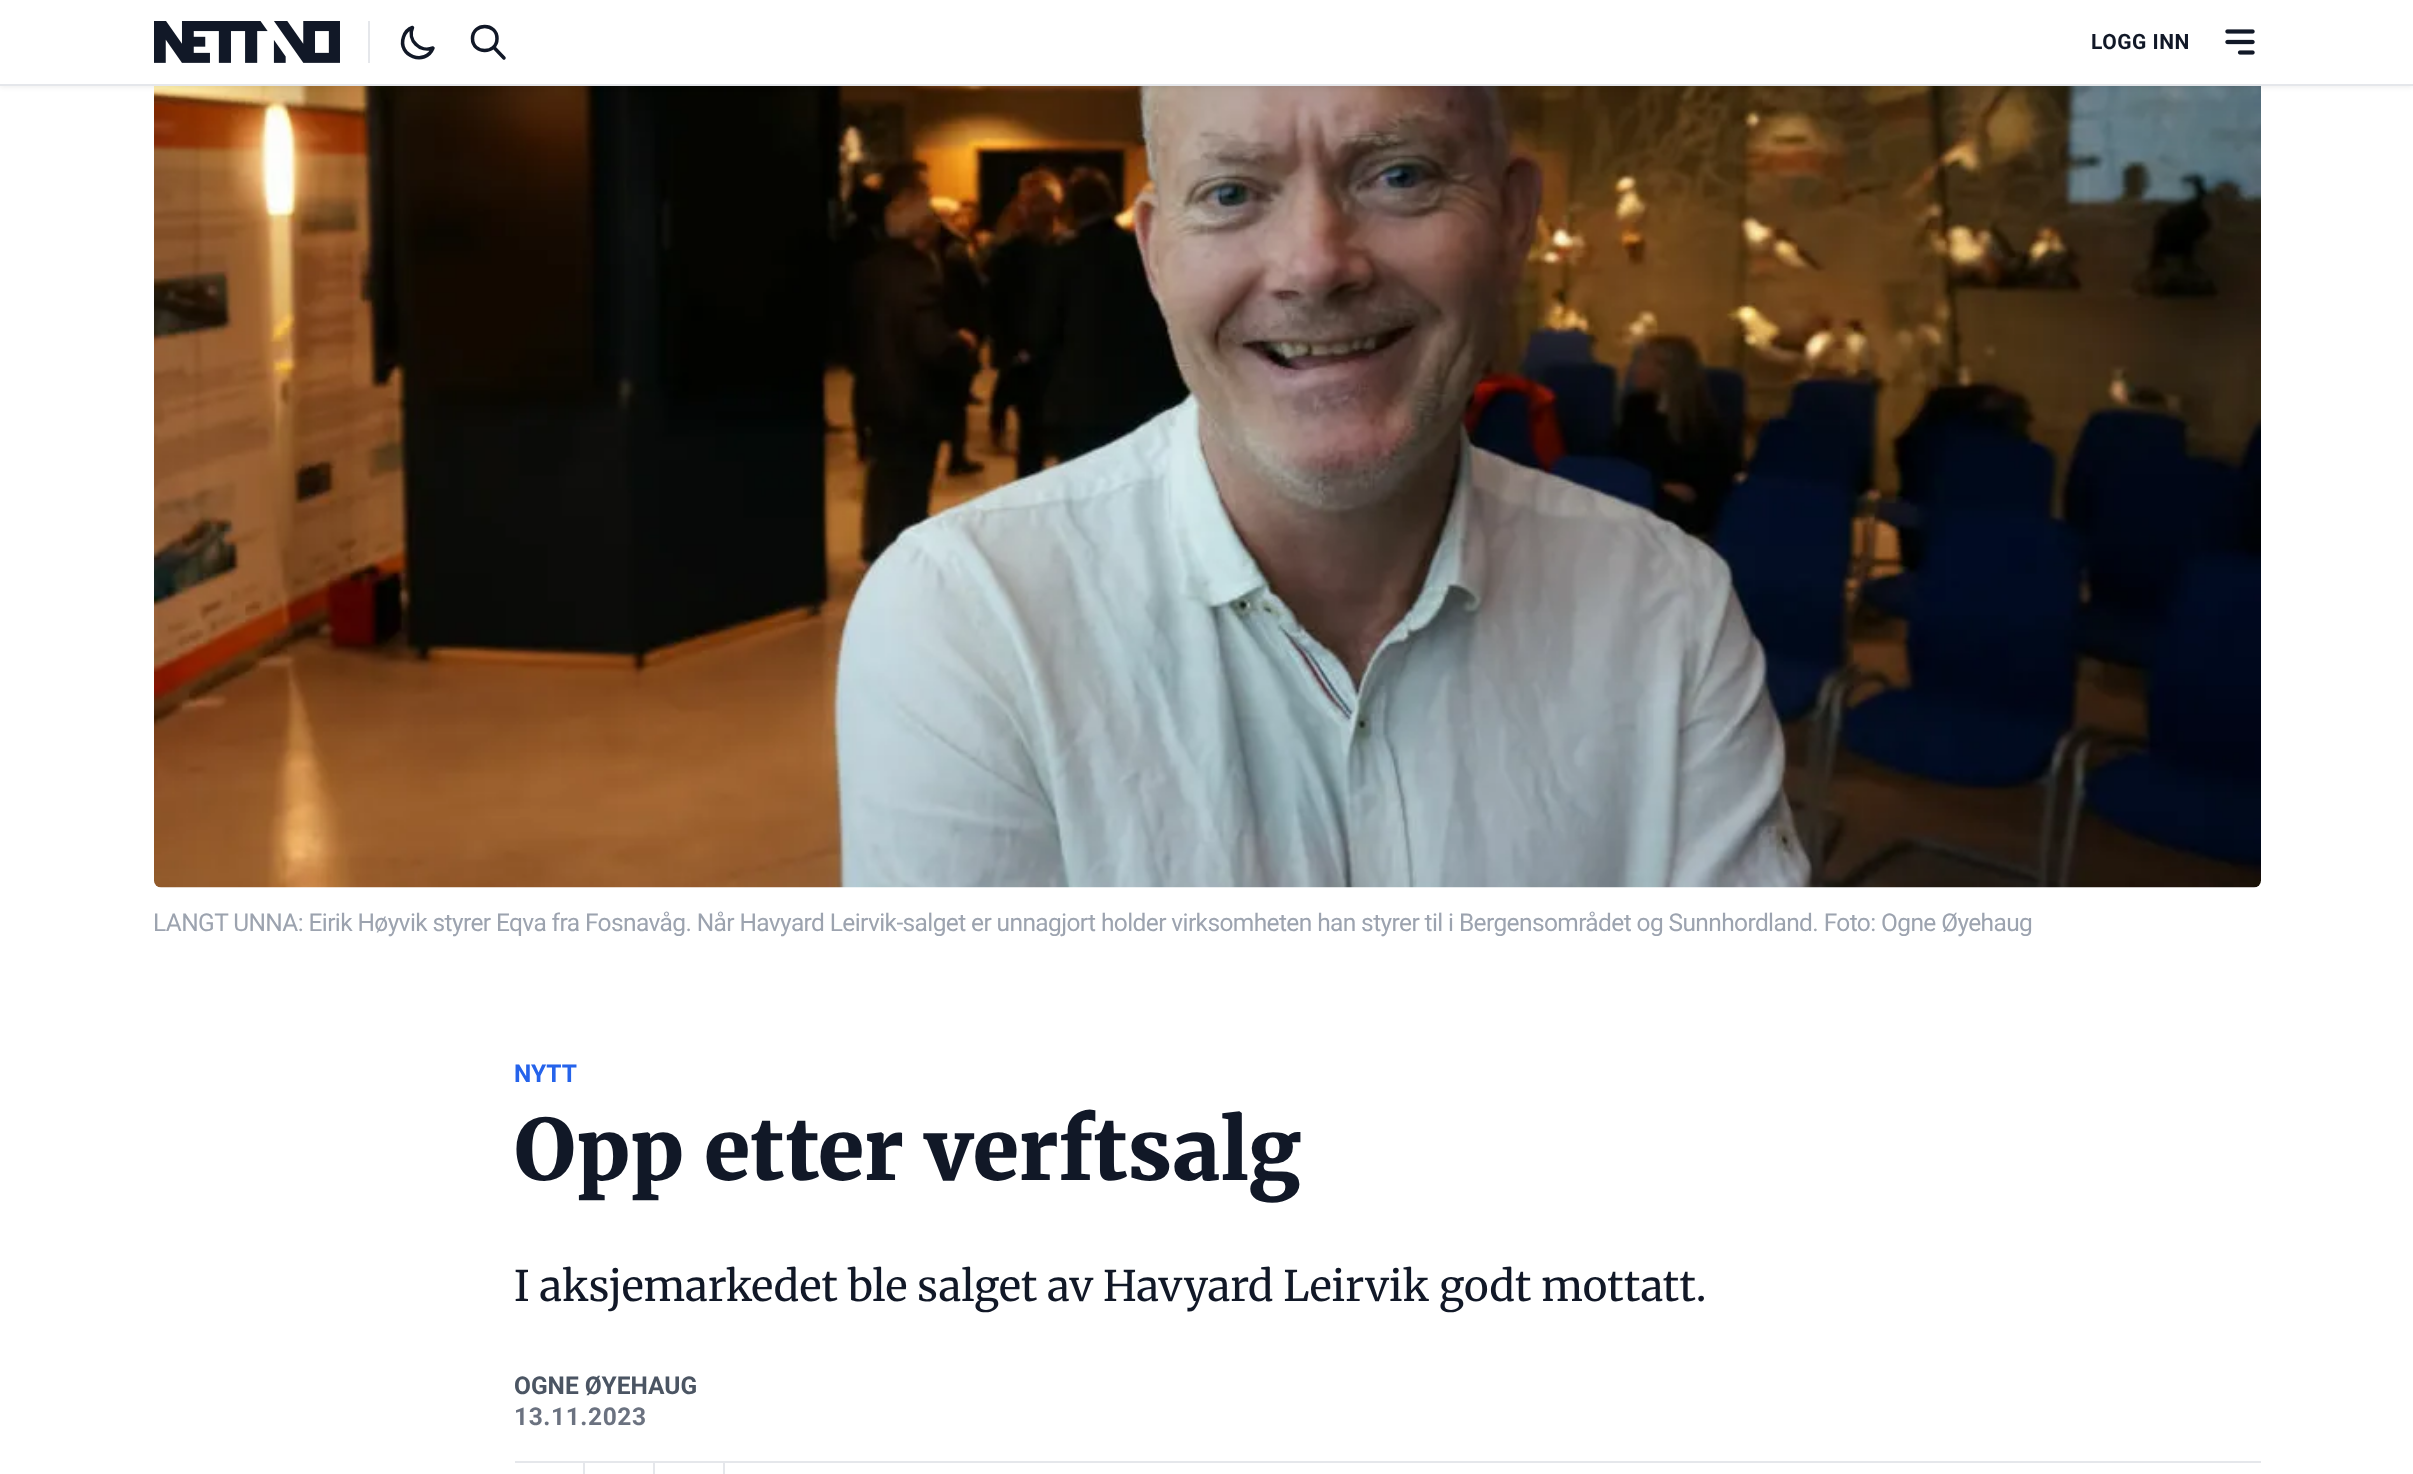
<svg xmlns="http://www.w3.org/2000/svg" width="2413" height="1474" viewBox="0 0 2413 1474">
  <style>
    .t1 { font: bold 21px Roboto; letter-spacing: 0.5px; fill: #111827; }
    .t2 { font: 24.5px Roboto; letter-spacing: -0.61px; fill: #9ca3af; }
    .t3 { font: bold 24.5px Roboto; fill: #2563eb; }
    .t4 { font: 900 84px Merriweather; fill: #111827; }
    .t5 { font: 42px Merriweather; fill: #111827; }
    .t6 { font: bold 24.5px Roboto; fill: #4b5563; }
    .t7 { font: bold 24.5px Roboto; letter-spacing: 0.6px; fill: #6b7280; }
  </style>
  <rect width="100%" height="100%" fill="#fff"/>
  <image x="154" y="86" width="2107" height="802" href="images/3.png"/>
  <rect x="0" y="2" width="2413" height="86" fill="#0000000d" filter="blur(2px)"/>
  <rect x="0" y="0" width="2413" height="84" fill="#fff"/>
  <rect x="0" y="84" width="2413" height="2" fill="#e5e7eb"/>
  <rect x="368" y="21" width="2" height="42" fill="#e5e7eb"/>
  <image x="154" y="21" width="186" height="42" href="images/1.png"/>
  <path d="M433 48C420 53 407 40 412.5 27.5C408 29 405 32.5 403.5 37C397 56 425.5 66.5 433 48Z" fill="none" stroke="#111827" stroke-width="3.5" stroke-linecap="round" stroke-linejoin="round"/>
  <path d="M504 58L493.5 47M497 38.5C497 54.5 472.5 54.5 472.5 38.5C472.5 22.5 497 22.5 497 38.5Z" fill="none" stroke="#111827" stroke-width="3.5" stroke-linecap="round" stroke-linejoin="round"/>
  <text x="2091" y="49" class="t1">LOGG INN</text>
  <image x="2225" y="29" width="30" height="26" href="images/2.png"/>
  <text x="153" y="931" class="t2">LANGT UNNA: Eirik Høyvik styrer Eqva fra Fosnavåg. Når Havyard Leirvik-salget er unnagjort holder virksomheten han styrer til i Bergensområdet og Sunnhordland. Foto: Ogne Øyehaug</text>
  <text x="514" y="1082" class="t3">NYTT</text>
  <text x="514" y="1180" class="t4">Opp etter verftsalg</text>
  <text x="514" y="1301" class="t5">I aksjemarkedet ble salget av Havyard Leirvik godt mottatt.</text>
  <text x="514" y="1394" class="t6">OGNE ØYEHAUG</text>
  <text x="514" y="1425" class="t7">13.11.2023</text>
  <rect x="515" y="1461" width="1746" height="2" fill="#e5e7eb"/>
  <rect x="583" y="1463" width="2" height="11" fill="#e5e7eb"/>
  <rect x="653" y="1463" width="2" height="11" fill="#e5e7eb"/>
  <rect x="723" y="1463" width="2" height="11" fill="#e5e7eb"/>
</svg>
